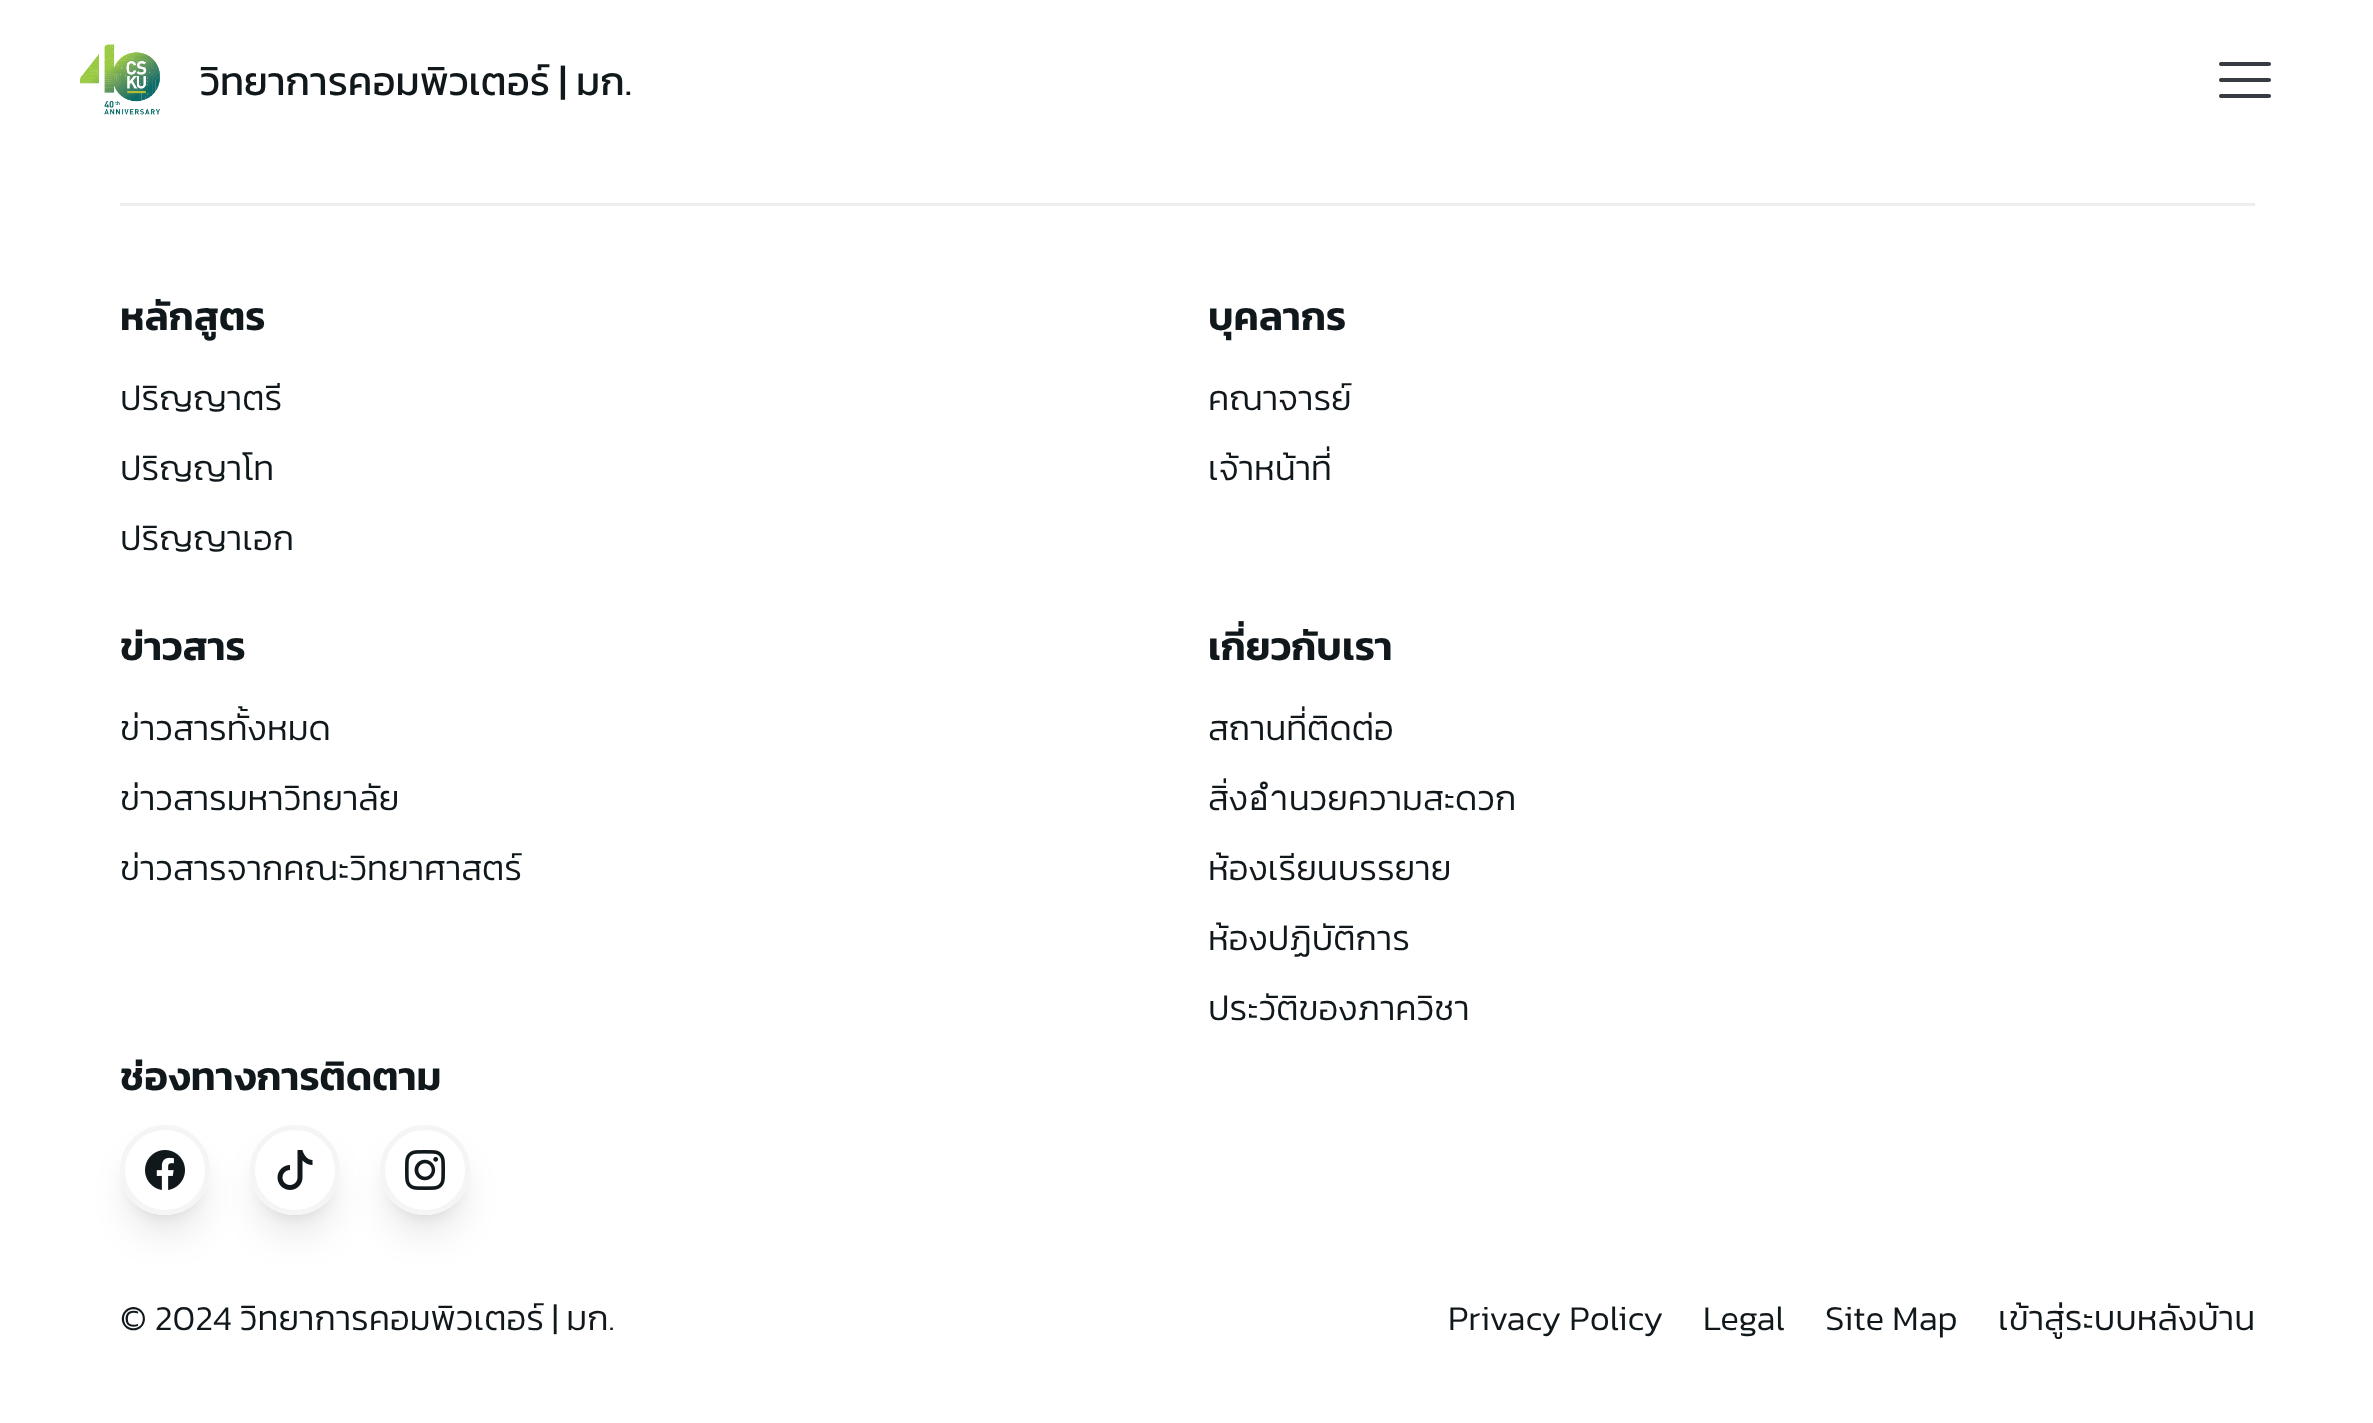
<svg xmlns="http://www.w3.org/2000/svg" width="2373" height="1423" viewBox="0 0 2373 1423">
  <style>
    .t1 { font: 40px Kanit; fill: #11181c; }
    .t2 { font: 600 40px Kanit; fill: #11181c; }
    .t3 { font: 300 35px Kanit; fill: #11181c; }
  </style>
  <defs>
    <clipPath id="clip1"><path d="M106 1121H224V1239H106ZM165 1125C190 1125 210 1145 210 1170C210 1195 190 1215 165 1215C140 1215 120 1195 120 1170C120 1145 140 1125 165 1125Z" clip-rule="evenodd"/></clipPath>
    <clipPath id="clip2"><path d="M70 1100H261V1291H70ZM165 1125C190 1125 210 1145 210 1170C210 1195 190 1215 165 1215C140 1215 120 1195 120 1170C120 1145 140 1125 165 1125Z" clip-rule="evenodd"/></clipPath>
    <clipPath id="clip3"><path d="M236 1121H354V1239H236ZM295 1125C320 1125 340 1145 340 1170C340 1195 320 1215 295 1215C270 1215 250 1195 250 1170C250 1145 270 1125 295 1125Z" clip-rule="evenodd"/></clipPath>
    <clipPath id="clip4"><path d="M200 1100H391V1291H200ZM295 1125C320 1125 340 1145 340 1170C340 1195 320 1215 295 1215C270 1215 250 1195 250 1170C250 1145 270 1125 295 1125Z" clip-rule="evenodd"/></clipPath>
    <clipPath id="clip5"><path d="M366 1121H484V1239H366ZM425 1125C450 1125 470 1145 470 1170C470 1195 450 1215 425 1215C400 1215 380 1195 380 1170C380 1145 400 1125 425 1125Z" clip-rule="evenodd"/></clipPath>
    <clipPath id="clip6"><path d="M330 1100H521V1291H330ZM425 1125C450 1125 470 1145 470 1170C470 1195 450 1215 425 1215C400 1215 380 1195 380 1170C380 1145 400 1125 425 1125Z" clip-rule="evenodd"/></clipPath>
  </defs>
  <rect width="100%" height="100%" fill="#fff"/>
  <image x="80" y="44" width="80" height="71" href="images/1.png"/>
  <text x="200" y="95" class="t1">วิทยาการคอมพิวเตอร์ | มก.</text>
  <image x="2219" y="62" width="52" height="36" href="images/2.png"/>
  <rect x="120" y="203" width="2135" height="3" fill="#eee"/>
  <text x="120" y="330" class="t2">หลักสูตร</text>
  <text x="120" y="410" class="t3">ปริญญาตรี</text>
  <text x="120" y="480" class="t3">ปริญญาโท</text>
  <text x="120" y="550" class="t3">ปริญญาเอก</text>
  <text x="1208" y="330" class="t2">บุคลากร</text>
  <text x="1208" y="410" class="t3">คณาจารย์</text>
  <text x="1208" y="480" class="t3">เจ้าหน้าที่</text>
  <text x="120" y="660" class="t2">ข่าวสาร</text>
  <text x="120" y="740" class="t3">ข่าวสารทั้งหมด</text>
  <text x="120" y="810" class="t3">ข่าวสารมหาวิทยาลัย</text>
  <text x="120" y="880" class="t3">ข่าวสารจากคณะวิทยาศาสตร์</text>
  <text x="1208" y="660" class="t2">เกี่ยวกับเรา</text>
  <text x="1208" y="740" class="t3">สถานที่ติดต่อ</text>
  <text x="1208" y="810" class="t3">สิ่งอำนวยความสะดวก</text>
  <text x="1208" y="880" class="t3">ห้องเรียนบรรยาย</text>
  <text x="1208" y="950" class="t3">ห้องปฏิบัติการ</text>
  <text x="1208" y="1020" class="t3">ประวัติของภาควิชา</text>
  <text x="120" y="1090" class="t2">ช่องทางการติดตาม</text>
  <g clip-path="url(#clip1)">
    <rect x="130" y="1145" width="70" height="70" rx="35" fill="#0000001a" filter="blur(7.5px)"/>
  </g>
  <g clip-path="url(#clip2)">
    <rect x="128" y="1158" width="75" height="75" rx="37.5" fill="#0000001a" filter="blur(19px)"/>
  </g>
  <circle cx="165" cy="1170" r="42.5" fill="none" stroke="#f5f5f5" stroke-width="5"/>
  <image x="145" y="1150" width="40" height="40" href="images/3.png"/>
  <g clip-path="url(#clip3)">
    <rect x="260" y="1145" width="70" height="70" rx="35" fill="#0000001a" filter="blur(7.5px)"/>
  </g>
  <g clip-path="url(#clip4)">
    <rect x="258" y="1158" width="75" height="75" rx="37.5" fill="#0000001a" filter="blur(19px)"/>
  </g>
  <circle cx="295" cy="1170" r="42.5" fill="none" stroke="#f5f5f5" stroke-width="5"/>
  <image x="277" y="1150" width="36" height="40" href="images/4.png"/>
  <g clip-path="url(#clip5)">
    <rect x="390" y="1145" width="70" height="70" rx="35" fill="#0000001a" filter="blur(7.5px)"/>
  </g>
  <g clip-path="url(#clip6)">
    <rect x="388" y="1158" width="75" height="75" rx="37.5" fill="#0000001a" filter="blur(19px)"/>
  </g>
  <circle cx="425" cy="1170" r="42.5" fill="none" stroke="#f5f5f5" stroke-width="5"/>
  <image x="405" y="1150" width="40" height="40" href="images/5.png"/>
  <text x="120" y="1330" class="t3">© 2024 วิทยาการคอมพิวเตอร์ | มก.</text>
  <text x="1448" y="1330" class="t3">Privacy Policy</text>
  <text x="1703" y="1330" class="t3">Legal</text>
  <text x="1825" y="1330" class="t3">Site Map</text>
  <text x="1998" y="1330" class="t3">เข้าสู่ระบบหลังบ้าน</text>
</svg>
